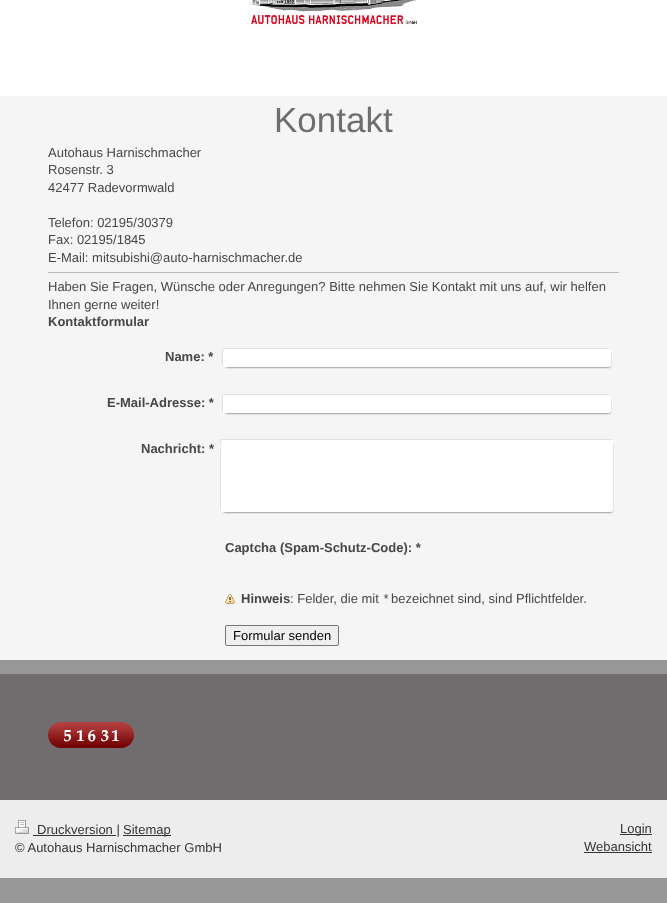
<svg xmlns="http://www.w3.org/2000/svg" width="667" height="903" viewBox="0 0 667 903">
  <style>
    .t1 { font: 35px Liberation Sans; fill: #716d6e; }
    .t2 { font: 13px Liberation Sans; fill: #474747; }
    .t3 { font: bold 13px Liberation Sans; fill: #474747; }
    .t4 { font: italic 13px Liberation Sans; fill: #474747; }
    .t5 { font: 13px Liberation Sans; fill: #000; }
    .t6 { font: 13px Liberation Sans; fill: #353535; }
  </style>
  <rect width="100%" height="100%" fill="#989898"/>
  <rect x="0" y="0" width="667" height="96" fill="#fff"/>
  <image x="249" y="0" width="168" height="28" href="images/1.png"/>
  <rect x="0" y="96" width="667" height="564" fill="#f5f5f5"/>
  <text x="274" y="132" class="t1">Kontakt</text>
  <text x="48" y="157" class="t2">Autohaus Harnischmacher</text>
  <text x="48" y="174" class="t2">Rosenstr. 3</text>
  <text x="48" y="192" class="t2">42477 Radevormwald</text>
  <text x="48" y="227" class="t2">Telefon: 02195/30379</text>
  <text x="48" y="244" class="t2">Fax: 02195/1845</text>
  <text x="48" y="262" class="t2">E-Mail: mitsubishi@auto-harnischmacher.de</text>
  <rect x="48" y="272" width="571" height="1" fill="#bababa"/>
  <text x="48" y="291" class="t2">Haben Sie Fragen, Wünsche oder Anregungen? Bitte nehmen Sie Kontakt mit uns auf, wir helfen</text>
  <text x="48" y="309" class="t2">Ihnen gerne weiter!</text>
  <text x="48" y="326" class="t3">Kontaktformular</text>
  <path d="M224 348C221 348 222 355 222 357C222 359 221 365 223 366V356C223 354 222 349 225 349H610L608 348Z" fill="#e1e1e1"/>
  <rect x="226" y="353" width="384" height="14" fill="#000000cc" filter="blur(1px)"/>
  <text x="165" y="361" class="t3">Name: *</text>
  <rect x="223" y="349" width="388" height="18" rx="2" fill="#fff"/>
  <path d="M224 394C221 394 222 401 222 403C222 405 221 411 223 412V402C223 400 222 395 225 395H610L608 394Z" fill="#e1e1e1"/>
  <rect x="226" y="399" width="384" height="14" fill="#000000cc" filter="blur(1px)"/>
  <text x="107" y="407" class="t3">E-Mail-Adresse: *</text>
  <rect x="223" y="395" width="388" height="18" rx="2" fill="#fff"/>
  <path d="M222 439L220 440V510L221 511V453C221 449 219 440 223 440H612L610 439Z" fill="#e1e1e1"/>
  <rect x="224" y="444" width="388" height="68" fill="#000000cc" filter="blur(1px)"/>
  <text x="141" y="453" class="t3">Nachricht: *</text>
  <rect x="221" y="440" width="392" height="72" rx="2" fill="#fff"/>
  <text x="225" y="552" class="t3">Captcha (Spam-Schutz-Code): *</text>
  <image x="225" y="594" width="10" height="10" href="images/2.png"/>
  <text x="241" y="603" class="t3">Hinweis</text>
  <text x="290" y="603" class="t2">: Felder, die mit</text>
  <text x="383" y="603" class="t4">*</text>
  <text x="391" y="603" class="t2">bezeichnet sind, sind Pflichtfelder.</text>
  <rect x="225.5" y="625.5" width="113" height="20" rx="1.5" fill="#efefef" stroke="#767676"/>
  <text x="233" y="640" class="t5">Formular senden</text>
  <rect x="0" y="674" width="667" height="126" fill="#716d6e"/>
  <image x="48" y="722" width="14" height="26" href="images/3.png"/>
  <image x="62" y="722" width="14" height="26" href="images/4.png"/>
  <image x="76" y="722" width="10" height="26" href="images/5.png"/>
  <image x="86" y="722" width="13" height="26" href="images/6.png"/>
  <image x="99" y="722" width="12" height="26" href="images/7.png"/>
  <image x="111" y="722" width="10" height="26" href="images/5.png"/>
  <image x="121" y="722" width="13" height="26" href="images/8.png"/>
  <rect x="0" y="800" width="667" height="78" fill="#ededed"/>
  <image x="15" y="820" width="14" height="14" href="images/9.png"/>
  <rect x="33" y="835" width="83" height="1" fill="#353535"/>
  <text x="37" y="834" class="t6">Druckversion |</text>
  <rect x="123" y="835" width="48" height="1" fill="#353535"/>
  <text x="123" y="834" class="t6">Sitemap</text>
  <text x="15" y="852" class="t6">© Autohaus Harnischmacher GmbH</text>
  <rect x="620" y="834" width="32" height="1" fill="#353535"/>
  <text x="620" y="833" class="t6">Login</text>
  <text x="584" y="851" class="t6">Webansicht</text>
  <rect x="584" y="852" width="68" height="1" fill="#353535"/>
</svg>
